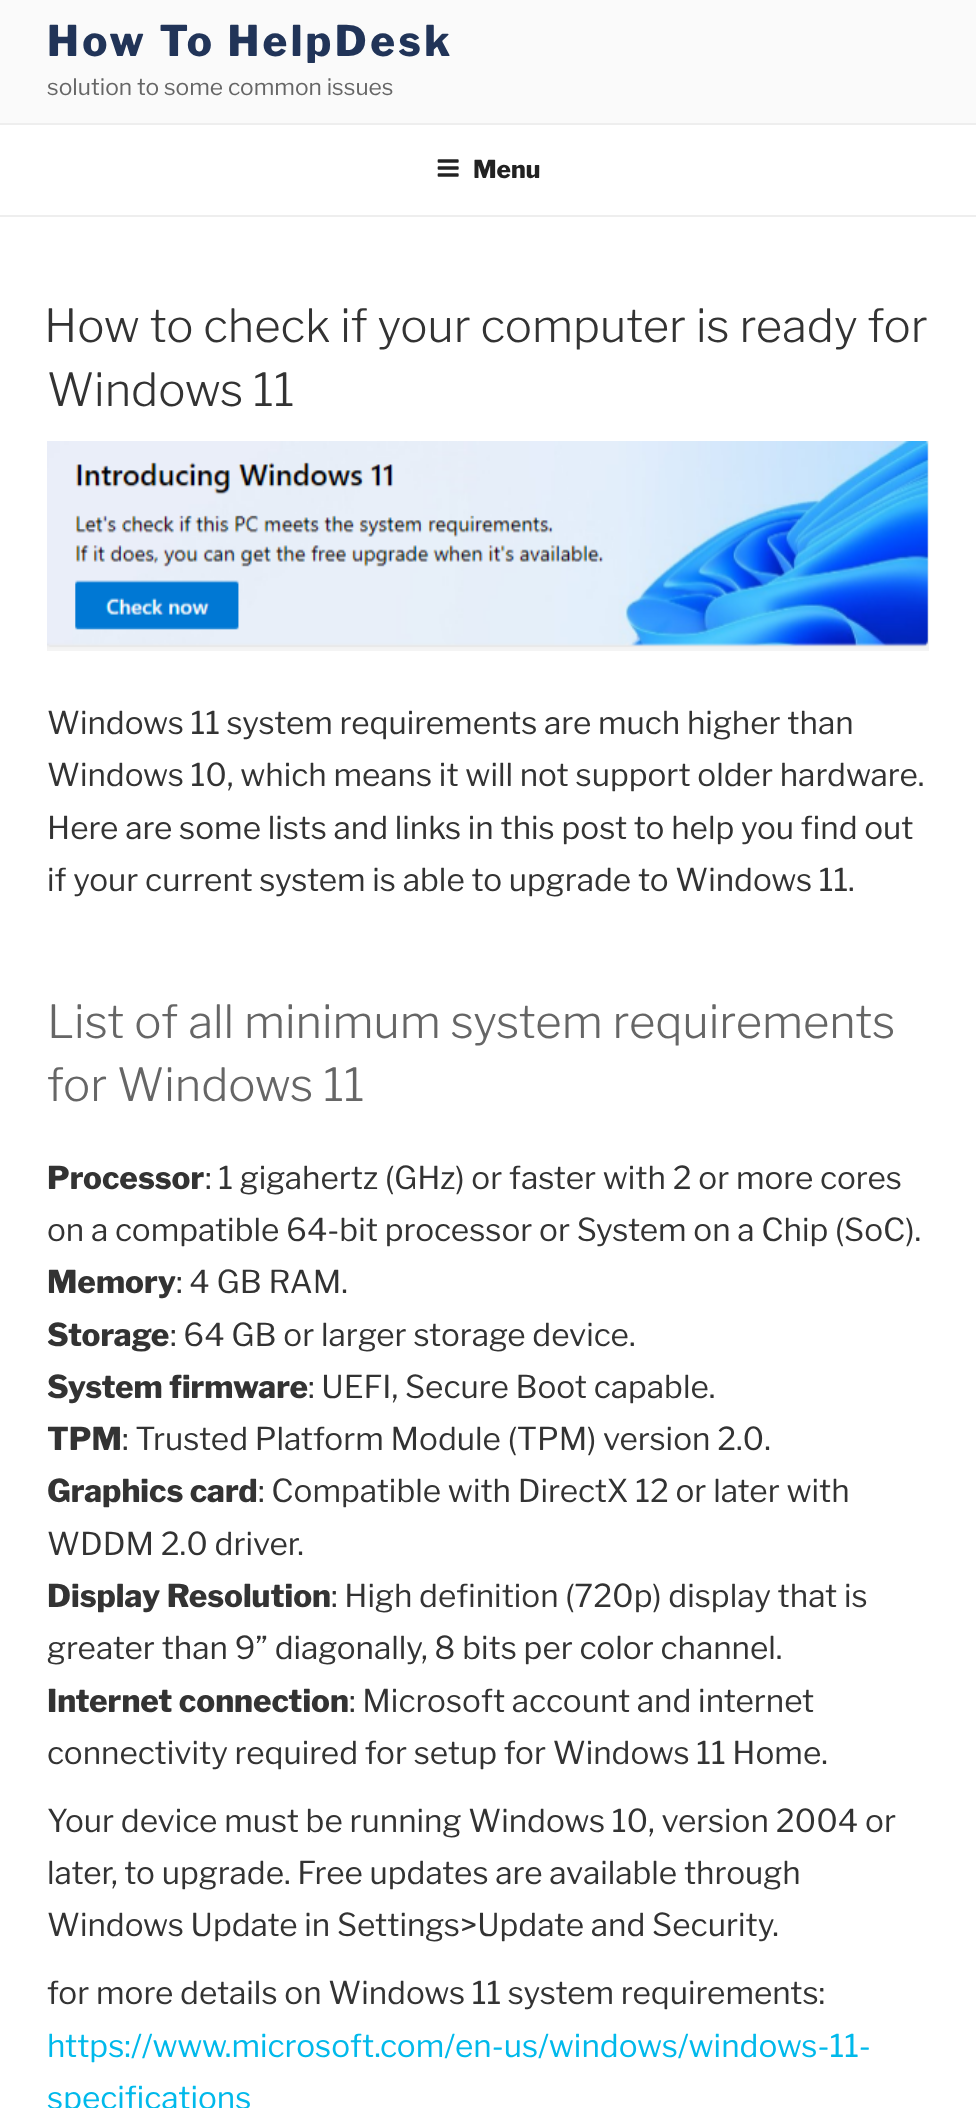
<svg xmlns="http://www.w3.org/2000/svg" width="976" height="2108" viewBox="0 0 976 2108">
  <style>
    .t1 { font: 800 42px Libre Franklin; letter-spacing: 3.4px; fill: #213458; }
    .t2 { font: 22.75px Libre Franklin; fill: #666; }
    .t3 { font: 800 24.5px Libre Franklin; fill: #222; }
    .t4 { font: 300 45.5px Libre Franklin; fill: #333; }
    .t5 { font: 31.5px Libre Franklin; fill: #333; }
    .t6 { font: 300 45.5px Libre Franklin; fill: #666; }
    .t7 { font: 800 31.5px Libre Franklin; fill: #333; }
    .t8 { font: 31.5px Libre Franklin; fill: #00b9eb; }
  </style>
  <rect width="100%" height="100%" fill="#fff"/>
  <rect x="0" y="0" width="976" height="123" fill="#fafafa"/>
  <text x="47" y="56" class="t1">How To HelpDesk</text>
  <text x="47" y="95" class="t2">solution to some common issues</text>
  <rect x="0" y="123" width="976" height="2" fill="#eee"/>
  <rect x="0" y="215" width="976" height="2" fill="#eee"/>
  <image x="437" y="159" width="22" height="18" href="images/1.png"/>
  <text x="473" y="178" class="t3">Menu</text>
  <text x="44" y="342" class="t4">How to check if your computer is ready for</text>
  <text x="47" y="406" class="t4">Windows 11</text>
  <image x="47" y="441" width="882" height="210" href="images/2.png"/>
  <text x="47" y="734" class="t5">Windows 11 system requirements are much higher than</text>
  <text x="47" y="786" class="t5">Windows 10, which means it will not support older hardware.</text>
  <text x="47" y="839" class="t5">Here are some lists and links in this post to help you find out</text>
  <text x="47" y="891" class="t5">if your current system is able to upgrade to Windows 11.</text>
  <text x="47" y="1038" class="t6">List of all minimum system requirements</text>
  <text x="47" y="1101" class="t6">for Windows 11</text>
  <text x="47" y="1189" class="t7">Processor</text>
  <text x="205" y="1189" class="t5">: 1 gigahertz (GHz) or faster with 2 or more cores</text>
  <text x="47" y="1241" class="t5">on a compatible 64-bit processor or System on a Chip (SoC).</text>
  <text x="47" y="1293" class="t7">Memory</text>
  <text x="176" y="1293" class="t5">: 4 GB RAM.</text>
  <text x="47" y="1346" class="t7">Storage</text>
  <text x="170" y="1346" class="t5">: 64 GB or larger storage device.</text>
  <text x="47" y="1398" class="t7">System firmware</text>
  <text x="308" y="1398" class="t5">: UEFI, Secure Boot capable.</text>
  <text x="47" y="1450" class="t7">TPM</text>
  <text x="122" y="1450" class="t5">: Trusted Platform Module (TPM) version 2.0.</text>
  <text x="47" y="1502" class="t7">Graphics card</text>
  <text x="258" y="1502" class="t5">: Compatible with DirectX 12 or later with</text>
  <text x="47" y="1555" class="t5">WDDM 2.0 driver.</text>
  <text x="47" y="1607" class="t7">Display Resolution</text>
  <text x="331" y="1607" class="t5">: High definition (720p) display that is</text>
  <text x="47" y="1659" class="t5">greater than 9” diagonally, 8 bits per color channel.</text>
  <text x="47" y="1712" class="t7">Internet connection</text>
  <text x="349" y="1712" class="t5">: Microsoft account and internet</text>
  <text x="47" y="1764" class="t5">connectivity required for setup for Windows 11 Home.</text>
  <text x="47" y="1832" class="t5">Your device must be running Windows 10, version 2004 or</text>
  <text x="47" y="1884" class="t5">later, to upgrade. Free updates are available through</text>
  <text x="47" y="1936" class="t5">Windows Update in Settings&gt;Update and Security.</text>
  <text x="47" y="2004" class="t5">for more details on Windows 11 system requirements:</text>
  <text x="47" y="2057" class="t8">https://www.microsoft.com/en-us/windows/windows-11-</text>
  <text x="47" y="2109" class="t8">specifications</text>
</svg>
